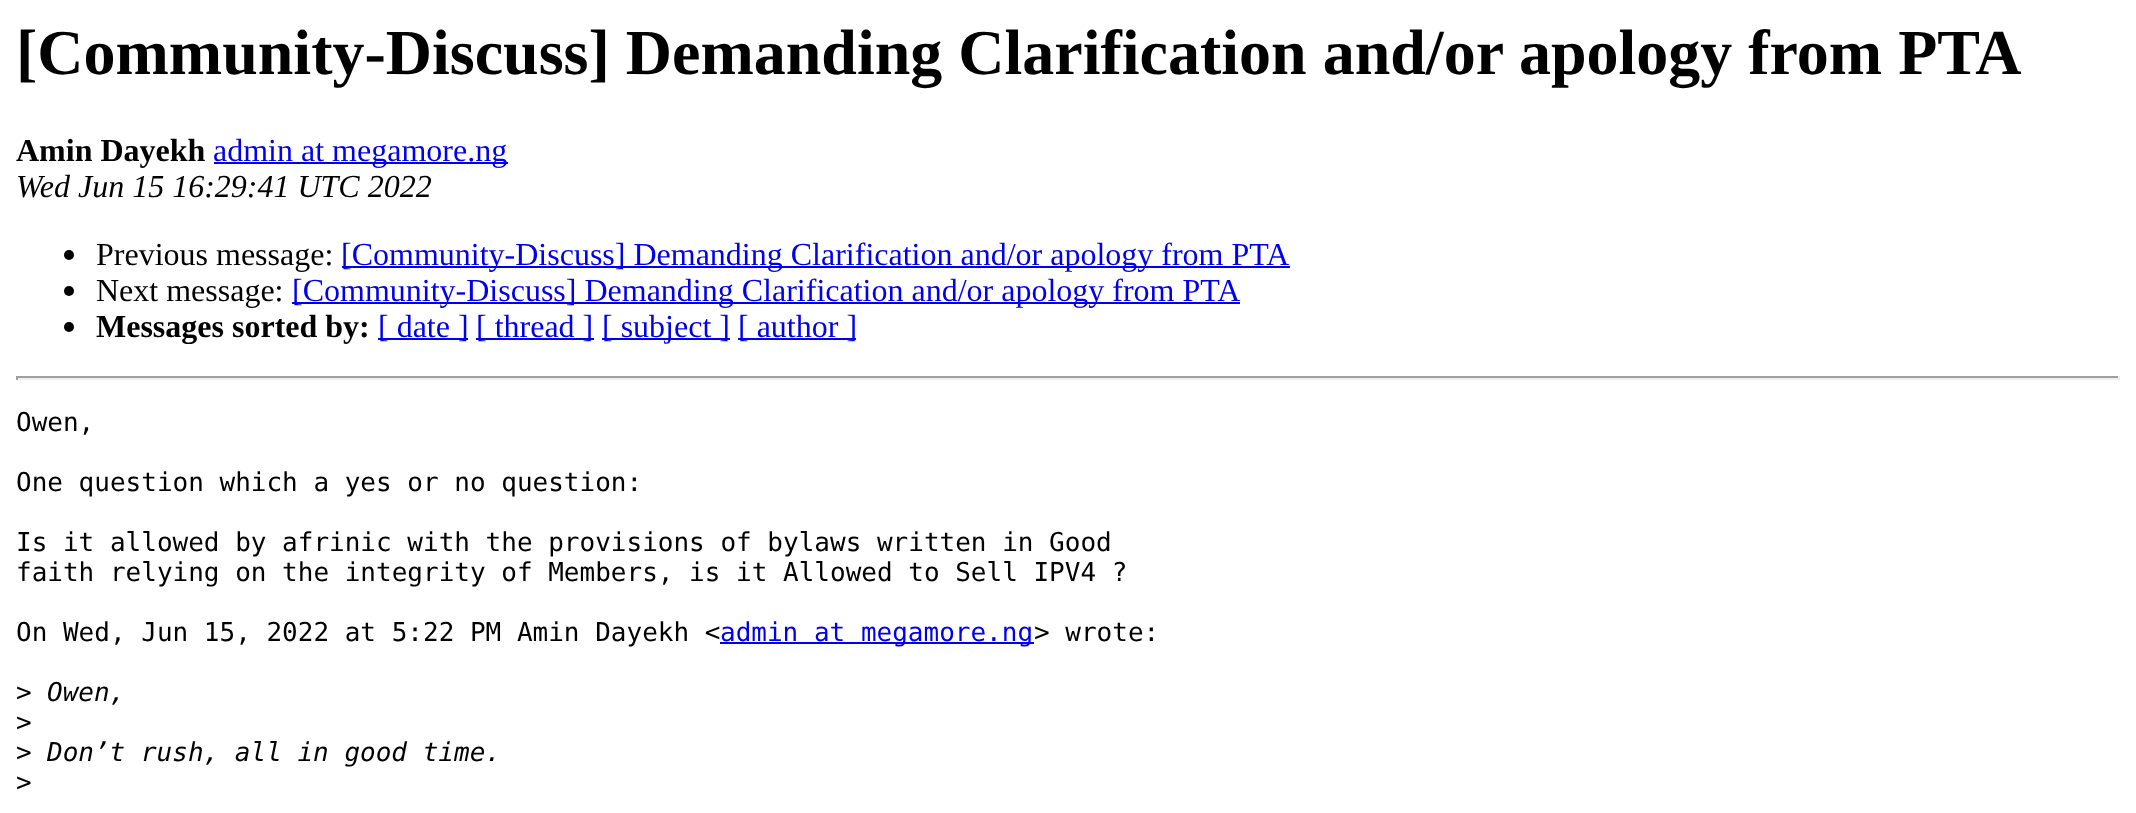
<svg xmlns="http://www.w3.org/2000/svg" width="2136" height="813" viewBox="0 0 2136 813">
  <style>
    .t1 { font: bold 64px Liberation Serif; fill: #000; }
    .t2 { font: bold 32px Liberation Serif; fill: #000; }
    .t3 { font: 32px Liberation Serif; fill: #00e; }
    .t4 { font: italic 32px Liberation Serif; fill: #000; }
    .t5 { font: 32px Liberation Serif; fill: #000; }
    .t6 { font: 26px DejaVu Sans Mono; fill: #000; }
    .t7 { font: 26px DejaVu Sans Mono; fill: #00e; }
    .t8 { font: italic 26px DejaVu Sans Mono; fill: #000; }
  </style>
  <rect width="100%" height="100%" fill="#fff"/>
  <text x="16" y="74" class="t1">[Community-Discuss] Demanding Clarification and/or apology from PTA</text>
  <text x="16" y="161" class="t2">Amin Dayekh</text>
  <rect x="214" y="162" width="294" height="2" fill="#00e"/>
  <text x="213" y="161" class="t3">admin at megamore.ng</text>
  <text x="16" y="197" class="t4">Wed Jun 15 16:29:41 UTC 2022</text>
  <circle cx="69" cy="255" r="5" fill="#000"/>
  <text x="96" y="265" class="t5">Previous message:</text>
  <rect x="342" y="266" width="948" height="2" fill="#00e"/>
  <text x="341" y="265" class="t3">[Community-Discuss] Demanding Clarification and/or apology from PTA</text>
  <circle cx="69" cy="291" r="5" fill="#000"/>
  <text x="96" y="301" class="t5">Next message:</text>
  <rect x="292" y="302" width="948" height="2" fill="#00e"/>
  <text x="292" y="301" class="t3">[Community-Discuss] Demanding Clarification and/or apology from PTA</text>
  <circle cx="69" cy="327" r="5" fill="#000"/>
  <text x="96" y="337" class="t2">Messages sorted by:</text>
  <rect x="378" y="338" width="90" height="2" fill="#00e"/>
  <text x="378" y="337" class="t3">[ date ]</text>
  <rect x="476" y="338" width="118" height="2" fill="#00e"/>
  <text x="476" y="337" class="t3">[ thread ]</text>
  <rect x="602" y="338" width="128" height="2" fill="#00e"/>
  <text x="602" y="337" class="t3">[ subject ]</text>
  <rect x="738" y="338" width="118" height="2" fill="#00e"/>
  <text x="738" y="337" class="t3">[ author ]</text>
  <rect x="16" y="376" width="2104" height="2" fill="#9f9f9f"/>
  <rect x="2118" y="376" width="2" height="4" fill="#eee"/>
  <rect x="16" y="378" width="2104" height="2" fill="#eee"/>
  <rect x="16" y="376" width="2" height="4" fill="#9f9f9f"/>
  <text x="16" y="431" class="t6">Owen,</text>
  <text x="16" y="491" class="t6">One question which a yes or no question:</text>
  <text x="16" y="551" class="t6">Is it allowed by afrinic with the provisions of bylaws written in Good</text>
  <text x="16" y="581" class="t6">faith relying on the integrity of Members, is it Allowed to Sell IPV4 ?</text>
  <text x="16" y="641" class="t6">On Wed, Jun 15, 2022 at 5:22 PM Amin Dayekh &lt;</text>
  <rect x="720" y="642" width="314" height="2" fill="#00e"/>
  <text x="720" y="641" class="t7">admin at megamore.ng</text>
  <text x="1034" y="641" class="t6">&gt; wrote:</text>
  <text x="16" y="701" class="t6">&gt;</text>
  <text x="47" y="701" class="t8">Owen,</text>
  <text x="16" y="731" class="t6">&gt;</text>
  <text x="16" y="761" class="t6">&gt;</text>
  <text x="47" y="761" class="t8">Don’t rush, all in good time.</text>
  <text x="16" y="791" class="t6">&gt;</text>
</svg>
